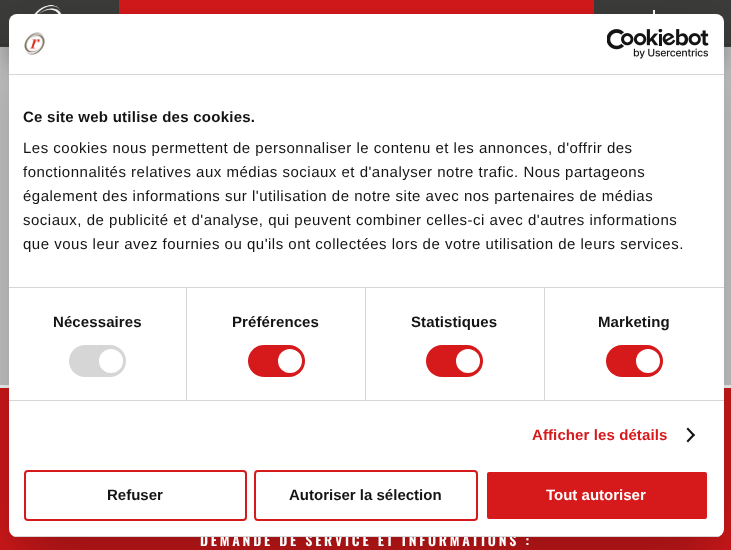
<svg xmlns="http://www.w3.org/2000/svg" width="731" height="550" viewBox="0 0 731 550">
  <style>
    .t1 { font: bold 15px Liberation Sans; letter-spacing: 0.25px; fill: #141414; }
    .t2 { font: 15px Liberation Sans; letter-spacing: 0.5px; fill: #141414; }
    .t3 { font: bold 15px Liberation Sans; letter-spacing: 0.1px; fill: #141414; }
    .t4 { font: bold 15px Liberation Sans; letter-spacing: 0.1px; fill: #d6191b; }
    .t5 { font: 600 14px Oswald; letter-spacing: 2.8px; fill: #fff; }
    .t6 { font: bold 15px Liberation Sans; fill: #141414; }
    .t7 { font: bold 15px Liberation Sans; fill: #fff; }
  </style>
  <defs>
    <clipPath id="clip1"><rect x="9" y="14" width="715" height="523" rx="8"/></clipPath>
  </defs>
  <rect width="100%" height="100%" fill="#fff"/>
  <rect x="0" y="47" width="731" height="338" fill="#ccc"/>
  <rect x="6" y="27" width="719" height="35" fill="#0000004d" filter="blur(11px)"/>
  <rect x="0" y="45" width="731" height="2" fill="#3c3c3b"/>
  <rect x="0" y="0" width="731" height="44" fill="#3c3c3b"/>
  <rect x="0" y="44" width="731" height="1" fill="#333"/>
  <image x="34" y="5" width="28" height="9" href="images/3.png"/>
  <rect x="119" y="0" width="475" height="14" fill="#d6191b"/>
  <rect x="653" y="10" width="2" height="4" fill="#fff"/>
  <rect x="0" y="388" width="731" height="162" fill="#d6191b"/>
  <rect x="9" y="46" width="715" height="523" rx="8" fill="#0000004d" filter="blur(34px)"/>
  <rect x="9" y="14" width="715" height="523" rx="8" fill="#fff"/>
  <rect x="9" y="74" width="715" height="1" fill="#d6d6d6"/>
  <image x="24" y="32" width="22" height="23" href="images/1.png"/>
  <image x="607" y="29" width="102" height="30" href="images/2.png"/>
  <rect x="9" y="287" width="715" height="1" fill="#d6d6d6"/>
  <text x="23" y="122" class="t1">Ce site web utilise des cookies.</text>
  <text x="23" y="153" class="t2">Les cookies nous permettent de personnaliser le contenu et les annonces, d'offrir des</text>
  <text x="23" y="177" class="t2">fonctionnalités relatives aux médias sociaux et d'analyser notre trafic. Nous partageons</text>
  <text x="23" y="201" class="t2">également des informations sur l'utilisation de notre site avec nos partenaires de médias</text>
  <text x="23" y="225" class="t2">sociaux, de publicité et d'analyse, qui peuvent combiner celles-ci avec d'autres informations</text>
  <text x="23" y="249" class="t2">que vous leur avez fournies ou qu'ils ont collectées lors de votre utilisation de leurs services.</text>
  <rect x="9" y="400" width="715" height="1" fill="#d6d6d6"/>
  <rect x="186" y="288" width="1" height="112" fill="#d6d6d6"/>
  <text x="53" y="327" class="t3">Nécessaires</text>
  <rect x="69" y="345" width="57" height="32" rx="16" fill="#d6d6d6"/>
  <circle cx="111" cy="361" r="12" fill="#fff"/>
  <rect x="365" y="288" width="1" height="112" fill="#d6d6d6"/>
  <text x="232" y="327" class="t3">Préférences</text>
  <rect x="248" y="345" width="57" height="32" rx="16" fill="#d6191b"/>
  <circle cx="290" cy="361" r="12" fill="#fff"/>
  <rect x="544" y="288" width="1" height="112" fill="#d6d6d6"/>
  <text x="411" y="327" class="t3">Statistiques</text>
  <rect x="426" y="345" width="57" height="32" rx="16" fill="#d6191b"/>
  <circle cx="468" cy="361" r="12" fill="#fff"/>
  <text x="598" y="327" class="t3">Marketing</text>
  <rect x="606" y="345" width="57" height="32" rx="16" fill="#d6191b"/>
  <circle cx="648" cy="361" r="12" fill="#fff"/>
  <text x="532" y="440" class="t4">Afficher les détails</text>
  <path d="M688 427.5L695 435L693.5 436.5L686.5 429Z" fill="#141414"/>
  <path d="M693.5 433.5L695 435L688 442.5L686.5 441Z" fill="#141414"/>
  <text x="200" y="546" class="t5">DEMANDE DE SERVICE ET INFORMATIONS :</text>
  <g clip-path="url(#clip1)">
    <rect x="9" y="536" width="715" height="1" fill="#d6d6d6"/>
  </g>
  <rect x="25" y="471" width="221" height="49" rx="3" fill="none" stroke="#d6191b" stroke-width="2"/>
  <text x="107" y="500" class="t6">Refuser</text>
  <rect x="255" y="471" width="222" height="49" rx="3" fill="none" stroke="#d6191b" stroke-width="2"/>
  <text x="289" y="500" class="t6">Autoriser la sélection</text>
  <rect x="486" y="471" width="222" height="49" rx="3" fill="#d6191b" stroke="#fff" stroke-width="2"/>
  <text x="546" y="500" class="t7">Tout autoriser</text>
</svg>
